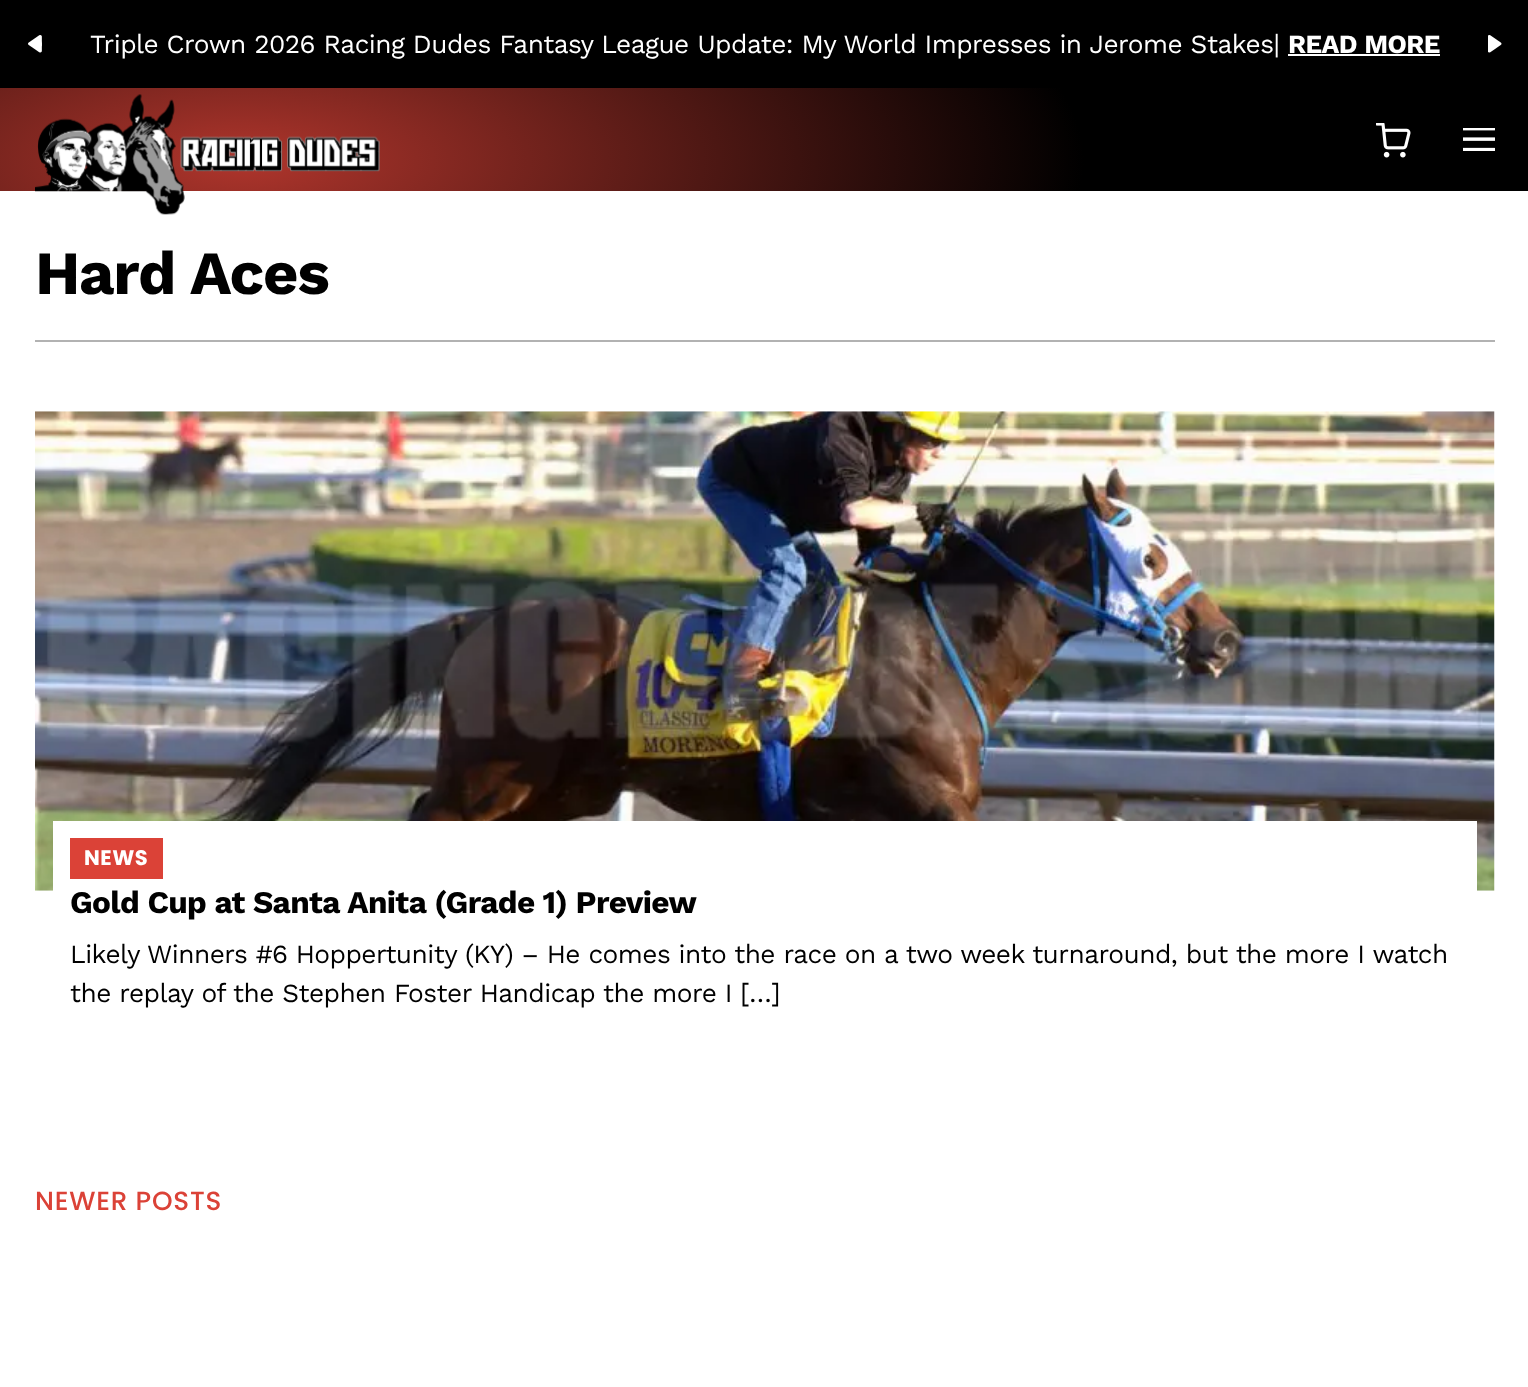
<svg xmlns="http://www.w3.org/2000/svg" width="1528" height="1387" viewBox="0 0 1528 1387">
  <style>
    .t1 { font: 26.25px Work Sans; letter-spacing: -0.53px; fill: #fff; }
    .t2 { font: bold 26.25px Work Sans; letter-spacing: -0.53px; fill: #fff; }
    .t3 { font: bold 61.25px Work Sans; letter-spacing: -1.25px; fill: #000; }
    .t4 { font: bold 21px Poppins; letter-spacing: 0.5px; fill: #fff; }
    .t5 { font: bold 31.5px Work Sans; letter-spacing: -0.65px; fill: #000; }
    .t6 { font: 26.25px Work Sans; letter-spacing: -0.53px; fill: #000; }
    .t7 { font: 500 26.25px Poppins; letter-spacing: 0.75px; fill: #db4237; }
  </style>
  <defs>
    <radialGradient id="g1" gradientUnits="userSpaceOnUse" cx="0" cy="0" r="1" gradientTransform="matrix(841 0 0 310 243 161)"><stop offset="0" stop-color="#af352c"/><stop offset="1" stop-color="#000"/></radialGradient>
  </defs>
  <rect width="100%" height="100%" fill="#fff"/>
  <rect x="0" y="0" width="1528" height="88" fill="#000"/>
  <image x="28" y="35" width="14" height="18" href="images/1.png"/>
  <text x="90" y="53" class="t1">Triple Crown 2026 Racing Dudes Fantasy League Update: My World Impresses in Jerome Stakes|</text>
  <text x="1288" y="53" class="t2">READ MORE</text>
  <rect x="1288" y="54" width="152" height="2" fill="#fff"/>
  <image x="1488" y="35" width="14" height="18" href="images/2.png"/>
  <rect x="0" y="88" width="1528" height="103" fill="url(#g1)"/>
  <image x="35" y="94" width="345" height="121" href="images/3.png"/>
  <image x="1376" y="123" width="35" height="35" href="images/4.png"/>
  <image x="1463" y="128" width="32" height="23" href="images/5.png"/>
  <rect x="35" y="340" width="1460" height="2" fill="#b2b2b2"/>
  <text x="35" y="294" class="t3">Hard Aces</text>
  <image x="35" y="411" width="1460" height="480" href="images/6.png"/>
  <rect x="53" y="821" width="1424" height="70" fill="#fff"/>
  <rect x="70" y="838" width="93" height="41" fill="#db4237"/>
  <text x="84" y="865" class="t4">NEWS</text>
  <text x="70" y="913" class="t5">Gold Cup at Santa Anita (Grade 1) Preview</text>
  <text x="70" y="963" class="t6">Likely Winners #6 Hoppertunity (KY) – He comes into the race on a two week turnaround, but the more I watch</text>
  <text x="70" y="1002" class="t6">the replay of the Stephen Foster Handicap the more I […]</text>
  <text x="35" y="1210" class="t7">NEWER POSTS</text>
</svg>
